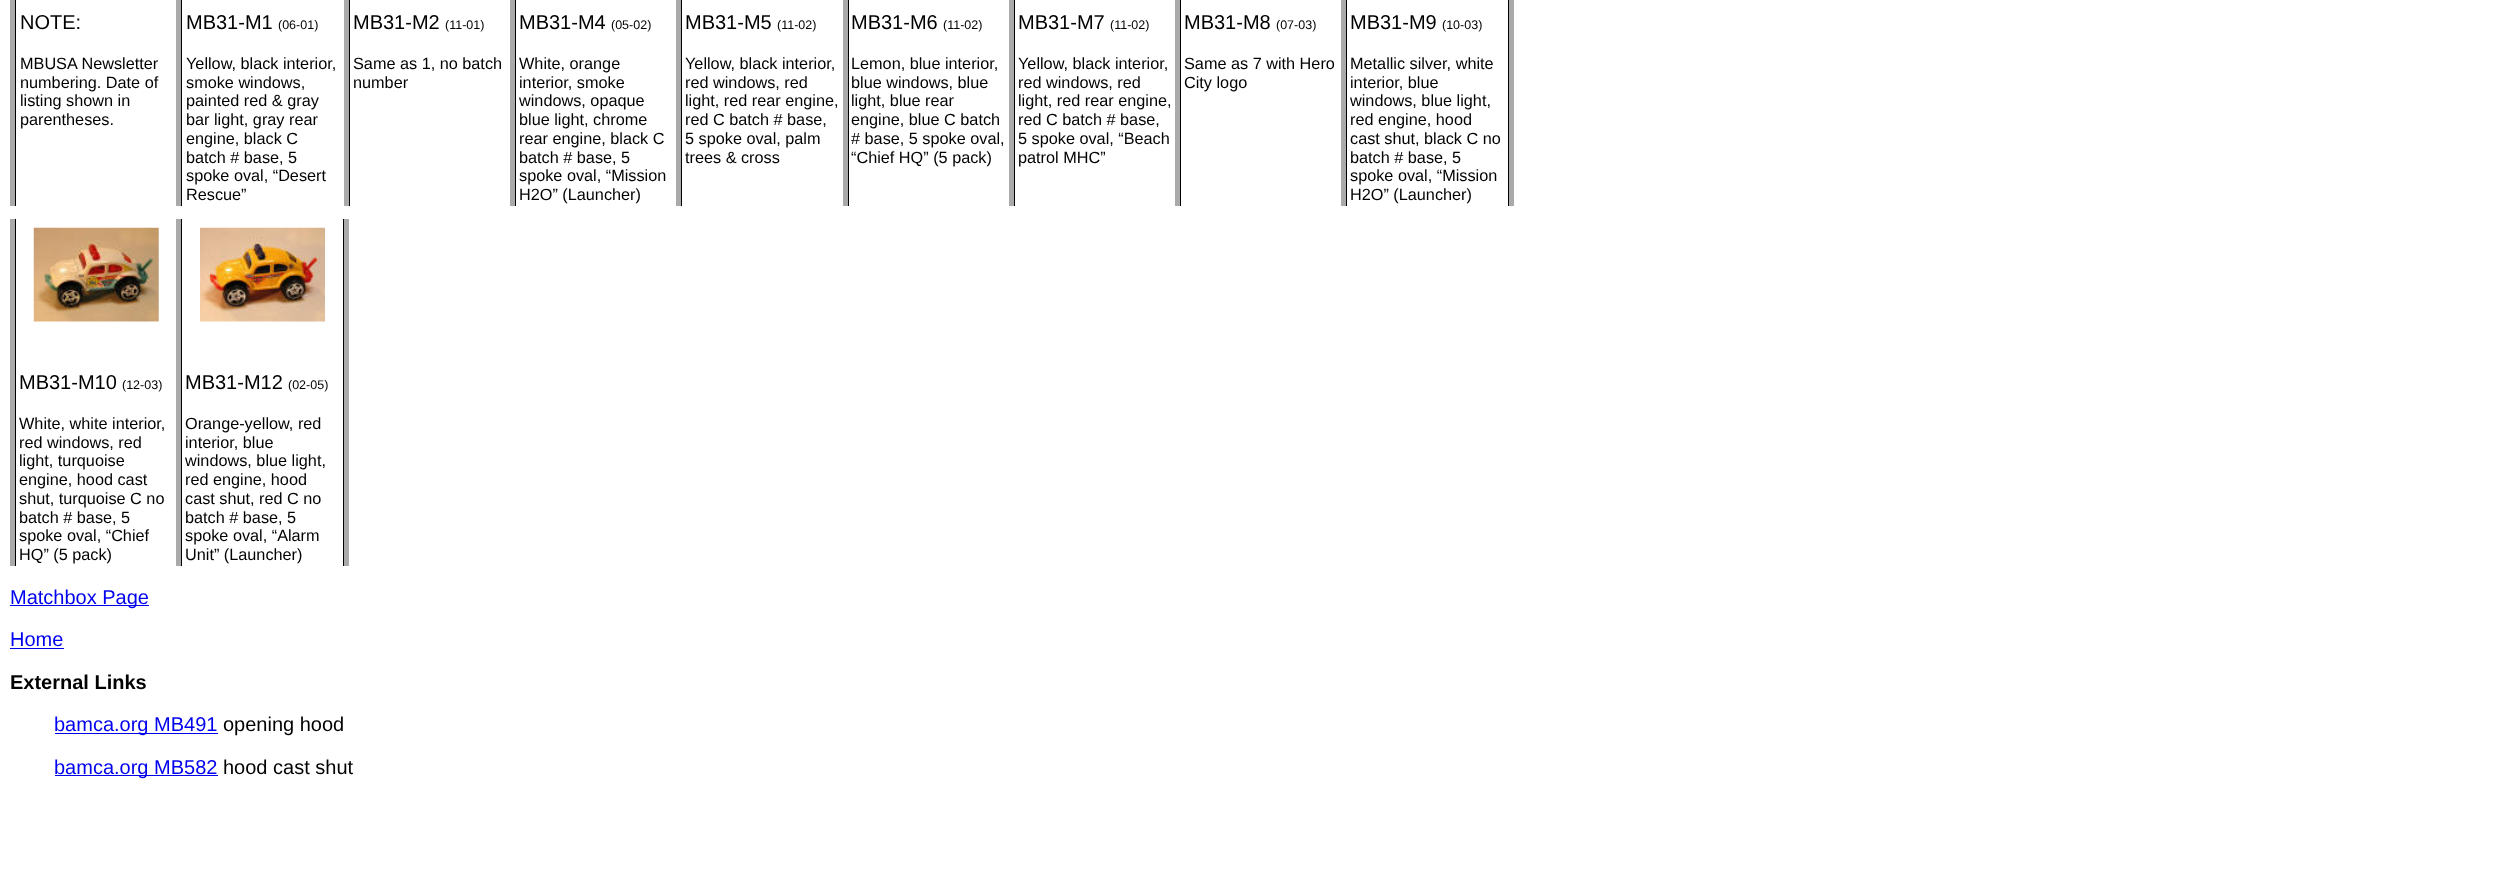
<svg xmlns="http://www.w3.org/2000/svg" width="2500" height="880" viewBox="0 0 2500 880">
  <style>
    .t1 { font: 20px Liberation Sans; fill: #000; }
    .t2 { font: 16.25px Liberation Sans; fill: #000; }
    .t3 { font: 12.5px Liberation Sans; fill: #000; }
    .t4 { font: 20px Liberation Sans; fill: #00e; }
    .t5 { font: bold 20px Liberation Sans; fill: #000; }
  </style>
  <rect width="100%" height="100%" fill="#fff"/>
  <rect x="10" y="0" width="5" height="206" fill="#aaa"/>
  <rect x="15" y="0" width="1" height="206" fill="#000"/>
  <text x="20" y="29" class="t1">NOTE:</text>
  <text x="20" y="69" class="t2">MBUSA Newsletter</text>
  <text x="20" y="88" class="t2">numbering. Date of</text>
  <text x="20" y="106" class="t2">listing shown in</text>
  <text x="20" y="125" class="t2">parentheses.</text>
  <rect x="176" y="0" width="5" height="206" fill="#aaa"/>
  <rect x="181" y="0" width="1" height="206" fill="#000"/>
  <text x="186" y="29" class="t1">MB31-M1</text>
  <text x="278" y="29" class="t3">(06-01)</text>
  <text x="186" y="69" class="t2">Yellow, black interior,</text>
  <text x="186" y="88" class="t2">smoke windows,</text>
  <text x="186" y="106" class="t2">painted red &amp; gray</text>
  <text x="186" y="125" class="t2">bar light, gray rear</text>
  <text x="186" y="144" class="t2">engine, black C</text>
  <text x="186" y="163" class="t2">batch # base, 5</text>
  <text x="186" y="181" class="t2">spoke oval, “Desert</text>
  <text x="186" y="200" class="t2">Rescue”</text>
  <rect x="344" y="0" width="5" height="206" fill="#aaa"/>
  <rect x="349" y="0" width="1" height="206" fill="#000"/>
  <text x="353" y="29" class="t1">MB31-M2</text>
  <text x="445" y="29" class="t3">(11-01)</text>
  <text x="353" y="69" class="t2">Same as 1, no batch</text>
  <text x="353" y="88" class="t2">number</text>
  <rect x="510" y="0" width="5" height="206" fill="#aaa"/>
  <rect x="515" y="0" width="1" height="206" fill="#000"/>
  <text x="519" y="29" class="t1">MB31-M4</text>
  <text x="611" y="29" class="t3">(05-02)</text>
  <text x="519" y="69" class="t2">White, orange</text>
  <text x="519" y="88" class="t2">interior, smoke</text>
  <text x="519" y="106" class="t2">windows, opaque</text>
  <text x="519" y="125" class="t2">blue light, chrome</text>
  <text x="519" y="144" class="t2">rear engine, black C</text>
  <text x="519" y="163" class="t2">batch # base, 5</text>
  <text x="519" y="181" class="t2">spoke oval, “Mission</text>
  <text x="519" y="200" class="t2">H2O” (Launcher)</text>
  <rect x="676" y="0" width="5" height="206" fill="#aaa"/>
  <rect x="681" y="0" width="1" height="206" fill="#000"/>
  <text x="685" y="29" class="t1">MB31-M5</text>
  <text x="777" y="29" class="t3">(11-02)</text>
  <text x="685" y="69" class="t2">Yellow, black interior,</text>
  <text x="685" y="88" class="t2">red windows, red</text>
  <text x="685" y="106" class="t2">light, red rear engine,</text>
  <text x="685" y="125" class="t2">red C batch # base,</text>
  <text x="685" y="144" class="t2">5 spoke oval, palm</text>
  <text x="685" y="163" class="t2">trees &amp; cross</text>
  <rect x="843" y="0" width="5" height="206" fill="#aaa"/>
  <rect x="848" y="0" width="1" height="206" fill="#000"/>
  <text x="851" y="29" class="t1">MB31-M6</text>
  <text x="943" y="29" class="t3">(11-02)</text>
  <text x="851" y="69" class="t2">Lemon, blue interior,</text>
  <text x="851" y="88" class="t2">blue windows, blue</text>
  <text x="851" y="106" class="t2">light, blue rear</text>
  <text x="851" y="125" class="t2">engine, blue C batch</text>
  <text x="851" y="144" class="t2"># base, 5 spoke oval,</text>
  <text x="851" y="163" class="t2">“Chief HQ” (5 pack)</text>
  <rect x="1009" y="0" width="5" height="206" fill="#aaa"/>
  <rect x="1014" y="0" width="1" height="206" fill="#000"/>
  <text x="1018" y="29" class="t1">MB31-M7</text>
  <text x="1110" y="29" class="t3">(11-02)</text>
  <text x="1018" y="69" class="t2">Yellow, black interior,</text>
  <text x="1018" y="88" class="t2">red windows, red</text>
  <text x="1018" y="106" class="t2">light, red rear engine,</text>
  <text x="1018" y="125" class="t2">red C batch # base,</text>
  <text x="1018" y="144" class="t2">5 spoke oval, “Beach</text>
  <text x="1018" y="163" class="t2">patrol MHC”</text>
  <rect x="1175" y="0" width="5" height="206" fill="#aaa"/>
  <rect x="1180" y="0" width="1" height="206" fill="#000"/>
  <text x="1184" y="29" class="t1">MB31-M8</text>
  <text x="1276" y="29" class="t3">(07-03)</text>
  <text x="1184" y="69" class="t2">Same as 7 with Hero</text>
  <text x="1184" y="88" class="t2">City logo</text>
  <rect x="1341" y="0" width="5" height="206" fill="#aaa"/>
  <rect x="1508" y="0" width="1" height="206" fill="#000"/>
  <rect x="1346" y="0" width="1" height="206" fill="#000"/>
  <text x="1350" y="29" class="t1">MB31-M9</text>
  <text x="1442" y="29" class="t3">(10-03)</text>
  <text x="1350" y="69" class="t2">Metallic silver, white</text>
  <text x="1350" y="88" class="t2">interior, blue</text>
  <text x="1350" y="106" class="t2">windows, blue light,</text>
  <text x="1350" y="125" class="t2">red engine, hood</text>
  <text x="1350" y="144" class="t2">cast shut, black C no</text>
  <text x="1350" y="163" class="t2">batch # base, 5</text>
  <text x="1350" y="181" class="t2">spoke oval, “Mission</text>
  <text x="1350" y="200" class="t2">H2O” (Launcher)</text>
  <rect x="1509" y="0" width="5" height="206" fill="#aaa"/>
  <rect x="10" y="219" width="5" height="347" fill="#aaa"/>
  <rect x="15" y="219" width="1" height="347" fill="#000"/>
  <image x="33" y="227" width="126" height="95" href="images/1.png"/>
  <text x="19" y="389" class="t1">MB31-M10</text>
  <text x="122" y="389" class="t3">(12-03)</text>
  <text x="19" y="429" class="t2">White, white interior,</text>
  <text x="19" y="448" class="t2">red windows, red</text>
  <text x="19" y="466" class="t2">light, turquoise</text>
  <text x="19" y="485" class="t2">engine, hood cast</text>
  <text x="19" y="504" class="t2">shut, turquoise C no</text>
  <text x="19" y="523" class="t2">batch # base, 5</text>
  <text x="19" y="541" class="t2">spoke oval, “Chief</text>
  <text x="19" y="560" class="t2">HQ” (5 pack)</text>
  <rect x="176" y="219" width="5" height="347" fill="#aaa"/>
  <rect x="343" y="219" width="1" height="347" fill="#000"/>
  <rect x="181" y="219" width="1" height="347" fill="#000"/>
  <image x="200" y="227" width="125" height="95" href="images/2.png"/>
  <text x="185" y="389" class="t1">MB31-M12</text>
  <text x="288" y="389" class="t3">(02-05)</text>
  <text x="185" y="429" class="t2">Orange-yellow, red</text>
  <text x="185" y="448" class="t2">interior, blue</text>
  <text x="185" y="466" class="t2">windows, blue light,</text>
  <text x="185" y="485" class="t2">red engine, hood</text>
  <text x="185" y="504" class="t2">cast shut, red C no</text>
  <text x="185" y="523" class="t2">batch # base, 5</text>
  <text x="185" y="541" class="t2">spoke oval, “Alarm</text>
  <text x="185" y="560" class="t2">Unit” (Launcher)</text>
  <rect x="344" y="219" width="5" height="347" fill="#aaa"/>
  <rect x="10" y="605" width="139" height="1" fill="#00e"/>
  <text x="10" y="604" class="t4">Matchbox Page</text>
  <text x="10" y="646" class="t4">Home</text>
  <rect x="10" y="648" width="54" height="1" fill="#00e"/>
  <text x="10" y="689" class="t5">External Links</text>
  <rect x="55" y="733" width="163" height="1" fill="#00e"/>
  <text x="54" y="731" class="t4">bamca.org MB491</text>
  <text x="223" y="731" class="t1">opening hood</text>
  <rect x="55" y="775" width="163" height="1" fill="#00e"/>
  <text x="54" y="774" class="t4">bamca.org MB582</text>
  <text x="223" y="774" class="t1">hood cast shut</text>
</svg>
